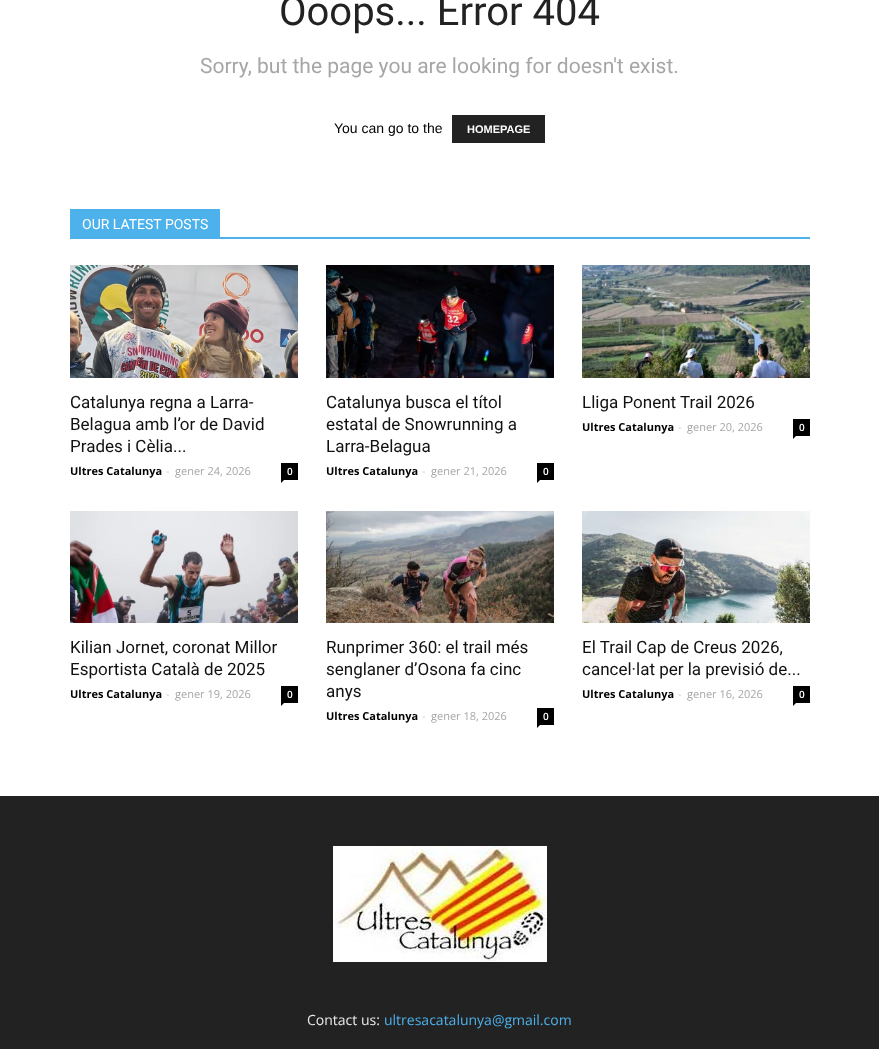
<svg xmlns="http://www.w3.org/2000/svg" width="879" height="1049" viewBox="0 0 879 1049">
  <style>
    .t1 { font: 40px Roboto; fill: #222; }
    .t2 { font: 21px Roboto; fill: #a6a6a6; }
    .t3 { font: 14px Liberation Sans; fill: #000; }
    .t4 { font: bold 11px Liberation Sans; fill: #fff; }
    .t5 { font: 14px Roboto; fill: #fff; }
    .t6 { font: 17px Roboto; fill: #111; }
    .t7 { font: bold 11px Open Sans; fill: #000; }
    .t8 { font: 11px Open Sans; fill: #ccc; }
    .t9 { font: 11px Open Sans; fill: #a6a6a6; }
    .t10 { font: 600 10px Open Sans; fill: #fff; }
    .t11 { font: 14px Open Sans; fill: #eaeaea; }
    .t12 { font: 14px Open Sans; fill: #4db2ec; }
  </style>
  <rect width="100%" height="100%" fill="#fff"/>
  <text x="279" y="25" class="t1">Ooops... Error 404</text>
  <text x="200" y="73" class="t2">Sorry, but the page you are looking for doesn't exist.</text>
  <text x="334" y="133" class="t3">You can go to the</text>
  <rect x="452" y="115" width="93" height="28" fill="#222"/>
  <text x="467" y="133" class="t4">HOMEPAGE</text>
  <rect x="70" y="237" width="740" height="2" fill="#4db2ec"/>
  <rect x="70" y="209" width="150" height="28" fill="#4db2ec"/>
  <text x="82" y="229" class="t5">OUR LATEST POSTS</text>
  <image x="70" y="265" width="228" height="113" href="images/1.png"/>
  <text x="70" y="408" class="t6">Catalunya regna a Larra-</text>
  <text x="70" y="430" class="t6">Belagua amb l’or de David</text>
  <text x="70" y="452" class="t6">Prades i Cèlia...</text>
  <text x="70" y="475" class="t7">Ultres Catalunya</text>
  <text x="166" y="475" class="t8">-</text>
  <text x="175" y="475" class="t9">gener 24, 2026</text>
  <rect x="281" y="463" width="17" height="17" fill="#000"/>
  <text x="287" y="475" class="t10">0</text>
  <path d="M281 480H284L281 483Z" fill="#000"/>
  <image x="326" y="265" width="228" height="113" href="images/2.png"/>
  <text x="326" y="408" class="t6">Catalunya busca el títol</text>
  <text x="326" y="430" class="t6">estatal de Snowrunning a</text>
  <text x="326" y="452" class="t6">Larra-Belagua</text>
  <text x="326" y="475" class="t7">Ultres Catalunya</text>
  <text x="422" y="475" class="t8">-</text>
  <text x="431" y="475" class="t9">gener 21, 2026</text>
  <rect x="537" y="463" width="17" height="17" fill="#000"/>
  <text x="543" y="475" class="t10">0</text>
  <path d="M537 480H540L537 483Z" fill="#000"/>
  <image x="582" y="265" width="228" height="113" href="images/3.png"/>
  <text x="582" y="408" class="t6">Lliga Ponent Trail 2026</text>
  <text x="582" y="431" class="t7">Ultres Catalunya</text>
  <text x="678" y="431" class="t8">-</text>
  <text x="687" y="431" class="t9">gener 20, 2026</text>
  <rect x="793" y="419" width="17" height="17" fill="#000"/>
  <text x="799" y="431" class="t10">0</text>
  <path d="M793 436H796L793 439Z" fill="#000"/>
  <image x="70" y="511" width="228" height="112" href="images/4.png"/>
  <text x="70" y="653" class="t6">Kilian Jornet, coronat Millor</text>
  <text x="70" y="675" class="t6">Esportista Català de 2025</text>
  <text x="70" y="698" class="t7">Ultres Catalunya</text>
  <text x="166" y="698" class="t8">-</text>
  <text x="175" y="698" class="t9">gener 19, 2026</text>
  <rect x="281" y="686" width="17" height="17" fill="#000"/>
  <text x="287" y="698" class="t10">0</text>
  <path d="M281 703H284L281 706Z" fill="#000"/>
  <image x="326" y="511" width="228" height="112" href="images/5.png"/>
  <text x="326" y="653" class="t6">Runprimer 360: el trail més</text>
  <text x="326" y="675" class="t6">senglaner d’Osona fa cinc</text>
  <text x="326" y="697" class="t6">anys</text>
  <text x="326" y="720" class="t7">Ultres Catalunya</text>
  <text x="422" y="720" class="t8">-</text>
  <text x="431" y="720" class="t9">gener 18, 2026</text>
  <rect x="537" y="708" width="17" height="17" fill="#000"/>
  <text x="543" y="720" class="t10">0</text>
  <path d="M537 725H540L537 728Z" fill="#000"/>
  <image x="582" y="511" width="228" height="112" href="images/6.png"/>
  <text x="582" y="653" class="t6">El Trail Cap de Creus 2026,</text>
  <text x="582" y="675" class="t6">cancel·lat per la previsió de...</text>
  <text x="582" y="698" class="t7">Ultres Catalunya</text>
  <text x="678" y="698" class="t8">-</text>
  <text x="687" y="698" class="t9">gener 16, 2026</text>
  <rect x="793" y="686" width="17" height="17" fill="#000"/>
  <text x="799" y="698" class="t10">0</text>
  <path d="M793 703H796L793 706Z" fill="#000"/>
  <rect x="0" y="796" width="879" height="253" fill="#222"/>
  <image x="333" y="846" width="214" height="116" href="images/7.png"/>
  <text x="307" y="1025" class="t11">Contact us:</text>
  <text x="384" y="1025" class="t12">ultresacatalunya@gmail.com</text>
</svg>
